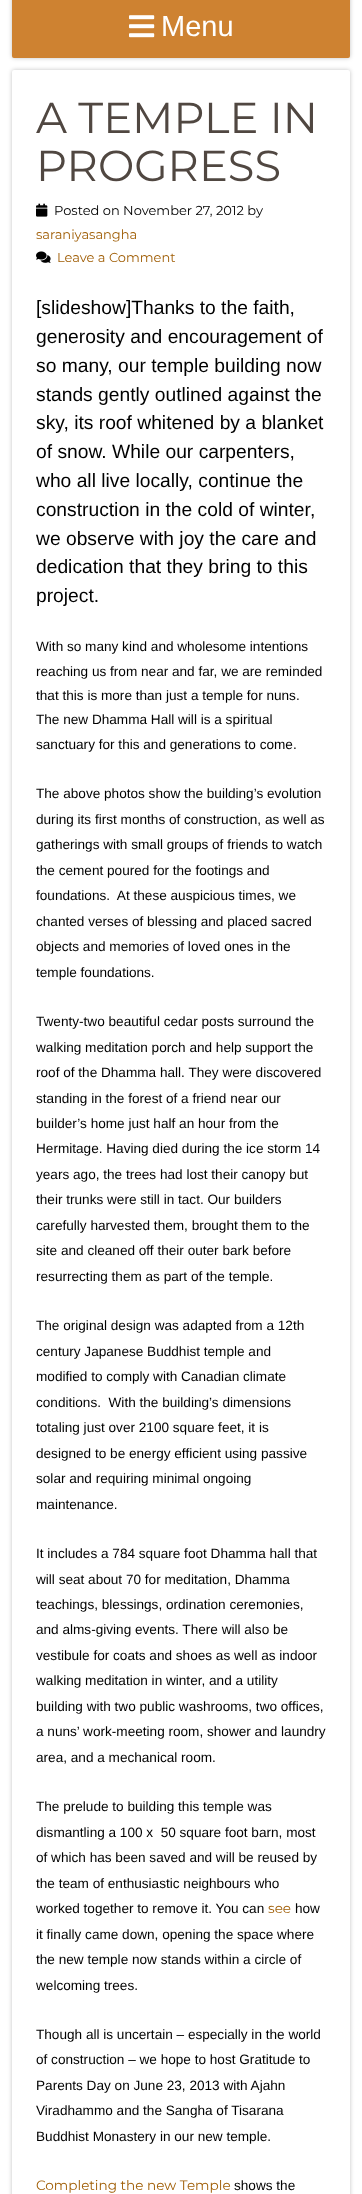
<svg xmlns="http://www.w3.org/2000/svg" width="362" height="2194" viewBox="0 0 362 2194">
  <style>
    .t1 { font: 29px Liberation Sans; fill: #fff; }
    .t2 { font: 43.25px Montserrat; fill: #504741; }
    .t3 { font: 13px Montserrat; fill: #000; }
    .t4 { font: 13px Montserrat; fill: #a05e06; }
    .t5 { font: 19.25px Liberation Sans; fill: #000; }
    .t6 { font: 13.6px Liberation Sans; fill: #000; }
    .t7 { font: 13.6px Montserrat; fill: #a05e06; }
  </style>
  <rect width="100%" height="100%" fill="#fff"/>
  <rect x="12" y="-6" width="338" height="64" rx="2" fill="#0000003d" filter="blur(2px)"/>
  <rect x="12" y="-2" width="338" height="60" rx="2" fill="#ce8231"/>
  <image x="129" y="15" width="26" height="23" href="images/1.png"/>
  <text x="161" y="36" class="t1">Menu</text>
  <rect x="12" y="70" width="338" height="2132" rx="2" fill="#0000003d" filter="blur(2px)"/>
  <rect x="12" y="70" width="338" height="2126" rx="2" fill="#fff"/>
  <text x="36" y="133" class="t2">A TEMPLE IN</text>
  <text x="36" y="181" class="t2">PROGRESS</text>
  <image x="36" y="203" width="12" height="14" href="images/2.png"/>
  <text x="54" y="215" class="t3">Posted on November 27, 2012 by</text>
  <text x="36" y="239" class="t4">saraniyasangha</text>
  <image x="36" y="251" width="15" height="12" href="images/3.png"/>
  <text x="57" y="262" class="t4">Leave a Comment</text>
  <text x="36" y="314" class="t5">[slideshow]Thanks to the faith,</text>
  <text x="36" y="343" class="t5">generosity and encouragement of</text>
  <text x="36" y="372" class="t5">so many, our temple building now</text>
  <text x="36" y="401" class="t5">stands gently outlined against the</text>
  <text x="36" y="429" class="t5">sky, its roof whitened by a blanket</text>
  <text x="36" y="458" class="t5">of snow. While our carpenters,</text>
  <text x="36" y="487" class="t5">who all live locally, continue the</text>
  <text x="36" y="516" class="t5">construction in the cold of winter,</text>
  <text x="36" y="545" class="t5">we observe with joy the care and</text>
  <text x="36" y="573" class="t5">dedication that they bring to this</text>
  <text x="36" y="602" class="t5">project.</text>
  <text x="36" y="651" class="t6">With so many kind and wholesome intentions</text>
  <text x="36" y="676" class="t6">reaching us from near and far, we are reminded</text>
  <text x="36" y="700" class="t6">that this is more than just a temple for nuns.</text>
  <text x="36" y="724" class="t6">The new Dhamma Hall will is a spiritual</text>
  <text x="36" y="749" class="t6">sanctuary for this and generations to come.</text>
  <text x="36" y="798" class="t6">The above photos show the building’s evolution</text>
  <text x="36" y="824" class="t6">during its first months of construction, as well as</text>
  <text x="36" y="849" class="t6">gatherings with small groups of friends to watch</text>
  <text x="36" y="875" class="t6">the cement poured for the footings and</text>
  <text x="36" y="900" class="t6" xml:space="preserve">foundations.  At these auspicious times, we</text>
  <text x="36" y="926" class="t6">chanted verses of blessing and placed sacred</text>
  <text x="36" y="951" class="t6">objects and memories of loved ones in the</text>
  <text x="36" y="977" class="t6">temple foundations.</text>
  <text x="36" y="1026" class="t6">Twenty-two beautiful cedar posts surround the</text>
  <text x="36" y="1052" class="t6">walking meditation porch and help support the</text>
  <text x="36" y="1077" class="t6">roof of the Dhamma hall. They were discovered</text>
  <text x="36" y="1103" class="t6">standing in the forest of a friend near our</text>
  <text x="36" y="1128" class="t6">builder’s home just half an hour from the</text>
  <text x="36" y="1153" class="t6">Hermitage. Having died during the ice storm 14</text>
  <text x="36" y="1179" class="t6">years ago, the trees had lost their canopy but</text>
  <text x="36" y="1204" class="t6">their trunks were still in tact. Our builders</text>
  <text x="36" y="1230" class="t6">carefully harvested them, brought them to the</text>
  <text x="36" y="1255" class="t6">site and cleaned off their outer bark before</text>
  <text x="36" y="1281" class="t6">resurrecting them as part of the temple.</text>
  <text x="36" y="1330" class="t6">The original design was adapted from a 12th</text>
  <text x="36" y="1356" class="t6">century Japanese Buddhist temple and</text>
  <text x="36" y="1381" class="t6">modified to comply with Canadian climate</text>
  <text x="36" y="1407" class="t6" xml:space="preserve">conditions.  With the building’s dimensions</text>
  <text x="36" y="1432" class="t6">totaling just over 2100 square feet, it is</text>
  <text x="36" y="1458" class="t6">designed to be energy efficient using passive</text>
  <text x="36" y="1483" class="t6">solar and requiring minimal ongoing</text>
  <text x="36" y="1509" class="t6">maintenance.</text>
  <text x="36" y="1558" class="t6">It includes a 784 square foot Dhamma hall that</text>
  <text x="36" y="1584" class="t6">will seat about 70 for meditation, Dhamma</text>
  <text x="36" y="1609" class="t6">teachings, blessings, ordination ceremonies,</text>
  <text x="36" y="1634" class="t6">and alms-giving events. There will also be</text>
  <text x="36" y="1660" class="t6">vestibule for coats and shoes as well as indoor</text>
  <text x="36" y="1685" class="t6">walking meditation in winter, and a utility</text>
  <text x="36" y="1711" class="t6">building with two public washrooms, two offices,</text>
  <text x="36" y="1736" class="t6">a nuns’ work-meeting room, shower and laundry</text>
  <text x="36" y="1762" class="t6">area, and a mechanical room.</text>
  <text x="36" y="1811" class="t6">The prelude to building this temple was</text>
  <text x="36" y="1837" class="t6" xml:space="preserve">dismantling a 100 x  50 square foot barn, most</text>
  <text x="36" y="1862" class="t6">of which has been saved and will be reused by</text>
  <text x="36" y="1888" class="t6">the team of enthusiastic neighbours who</text>
  <text x="36" y="1913" class="t6">worked together to remove it. You can</text>
  <text x="268" y="1913" class="t7">see</text>
  <text x="295" y="1913" class="t6">how</text>
  <text x="36" y="1939" class="t6">it finally came down, opening the space where</text>
  <text x="36" y="1964" class="t6">the new temple now stands within a circle of</text>
  <text x="36" y="1990" class="t6">welcoming trees.</text>
  <text x="36" y="2039" class="t6">Though all is uncertain – especially in the world</text>
  <text x="36" y="2064" class="t6">of construction – we hope to host Gratitude to</text>
  <text x="36" y="2090" class="t6">Parents Day on June 23, 2013 with Ajahn</text>
  <text x="36" y="2115" class="t6">Viradhammo and the Sangha of Tisarana</text>
  <text x="36" y="2141" class="t6">Buddhist Monastery in our new temple.</text>
  <text x="36" y="2190" class="t7">Completing the new Temple</text>
  <text x="234" y="2190" class="t6">shows the</text>
</svg>
